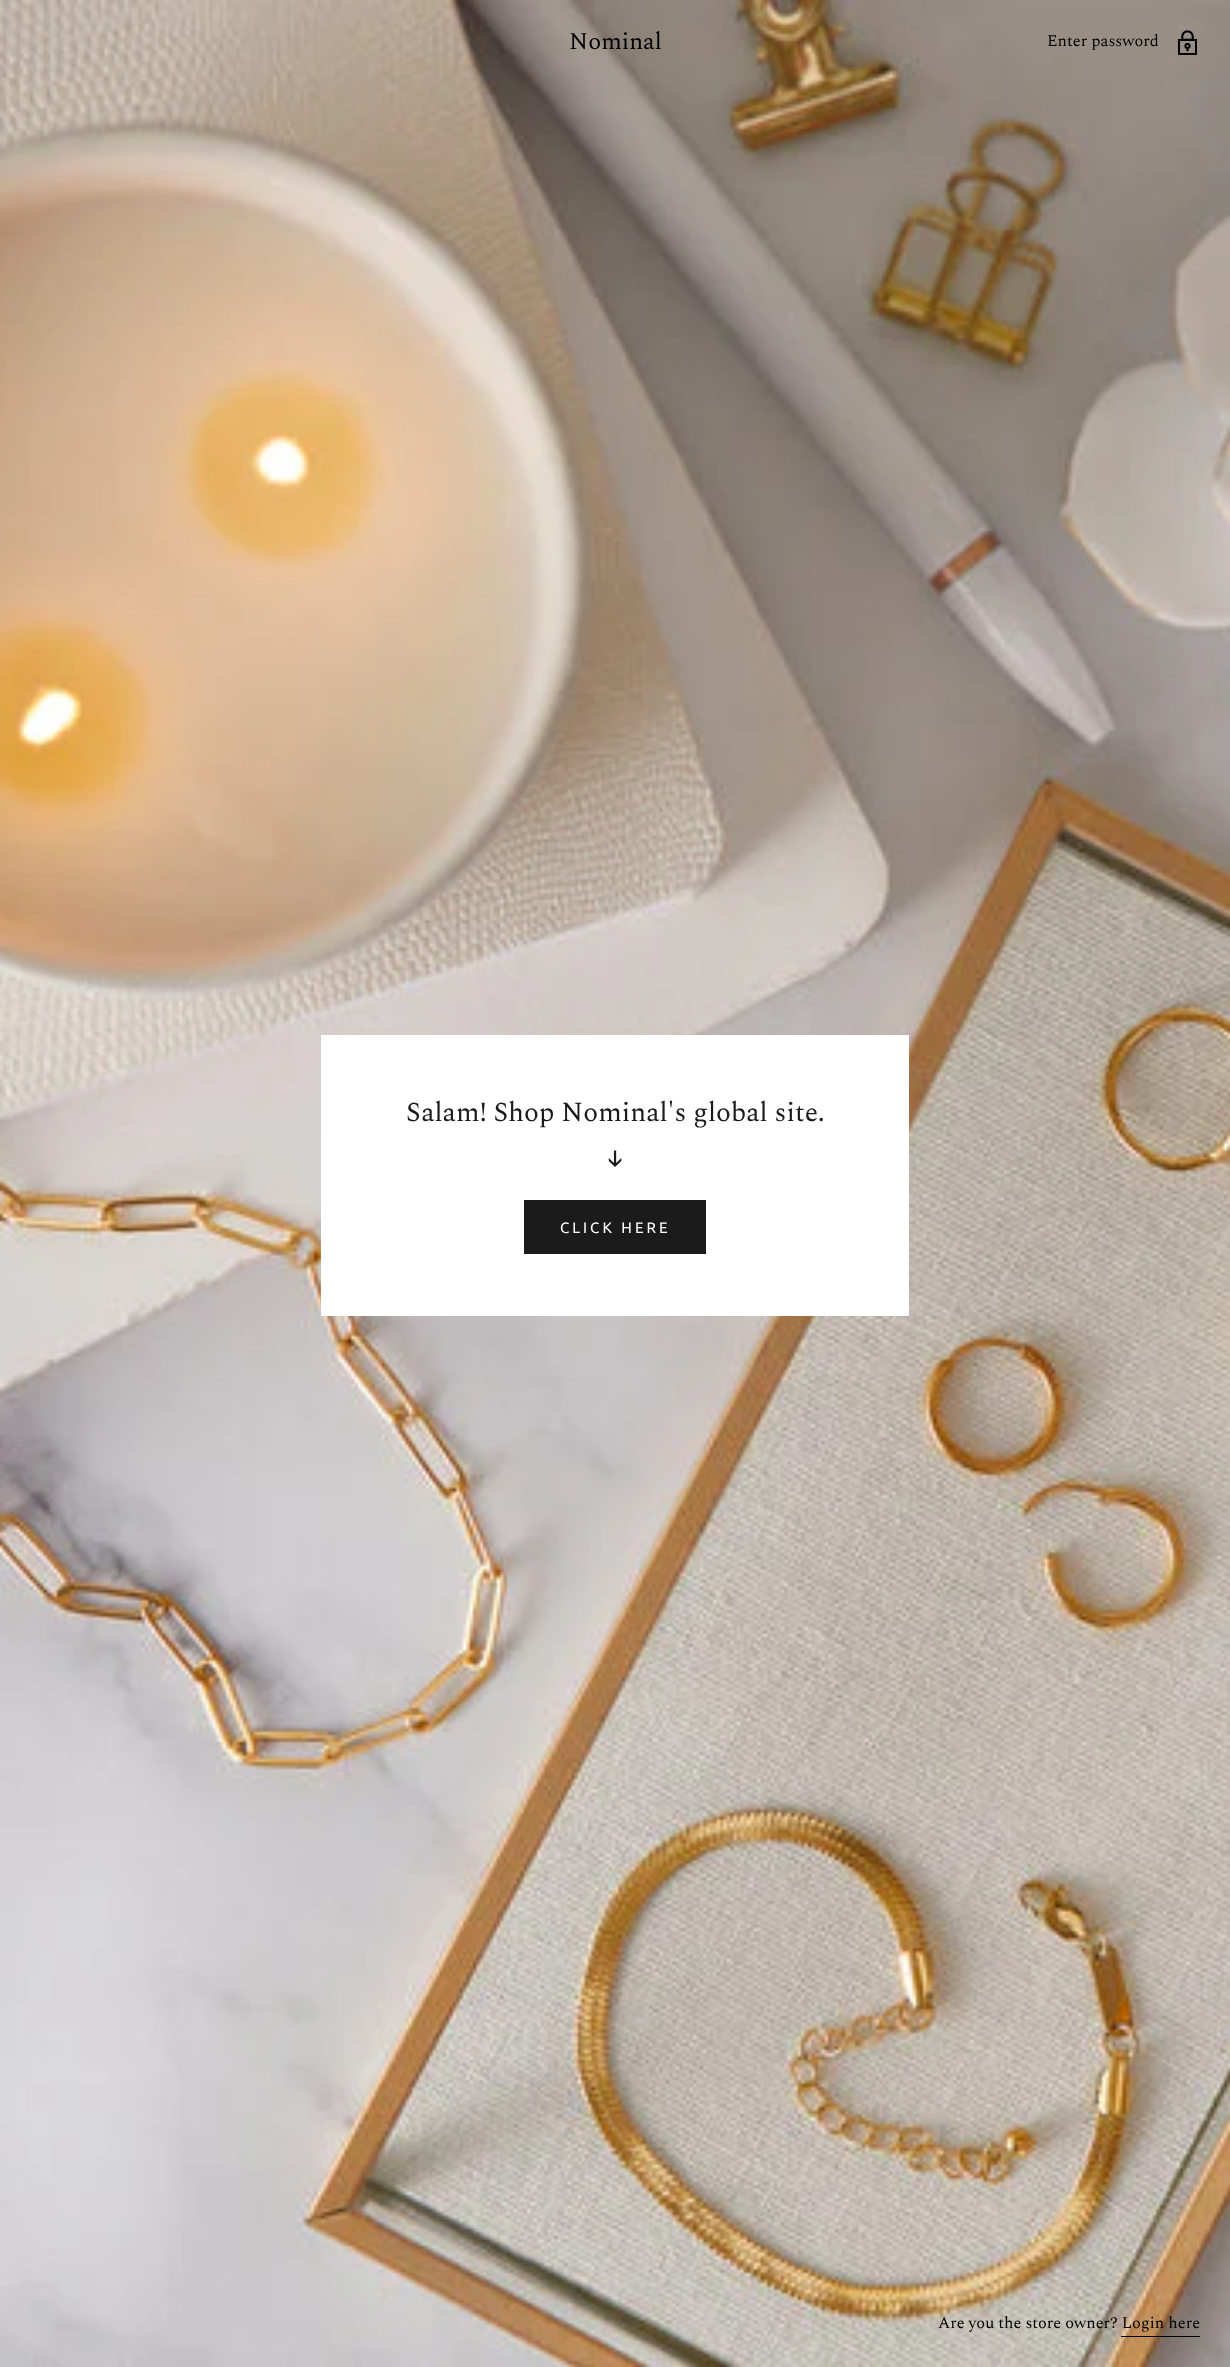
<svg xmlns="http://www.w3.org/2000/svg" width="1230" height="2367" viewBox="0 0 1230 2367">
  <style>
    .t1 { font: 24px Spectral; fill: #000; }
    .t2 { font: 16.25px Spectral; fill: #000; }
    .t3 { font: 27.5px Spectral; fill: #1c1b1b; }
    .t4 { font: 15px Ubuntu; letter-spacing: 3px; fill: #fff; }
  </style>
  <rect width="100%" height="100%" fill="#fff"/>
  <image x="0" y="0" width="1230" height="2367" href="images/1.png"/>
  <text x="569" y="49" class="t1">Nominal</text>
  <text x="1047" y="46" class="t2">Enter password</text>
  <image x="1178" y="30" width="19" height="25" href="images/2.png"/>
  <rect x="321" y="1035" width="588" height="281" fill="#fff"/>
  <text x="406" y="1121" class="t3">Salam! Shop Nominal's global site.</text>
  <text x="606" y="1167" class="t3">↓</text>
  <rect x="524.5" y="1200.5" width="181" height="53" fill="none" stroke="#1c1b1b"/>
  <rect x="525" y="1201" width="180" height="52" fill="#1c1b1b"/>
  <text x="560" y="1233" class="t4">CLICK HERE</text>
  <text x="938" y="2328" class="t2">Are you the store owner? Login here</text>
  <rect x="1121" y="2336" width="79" height="1" fill="#000"/>
</svg>
